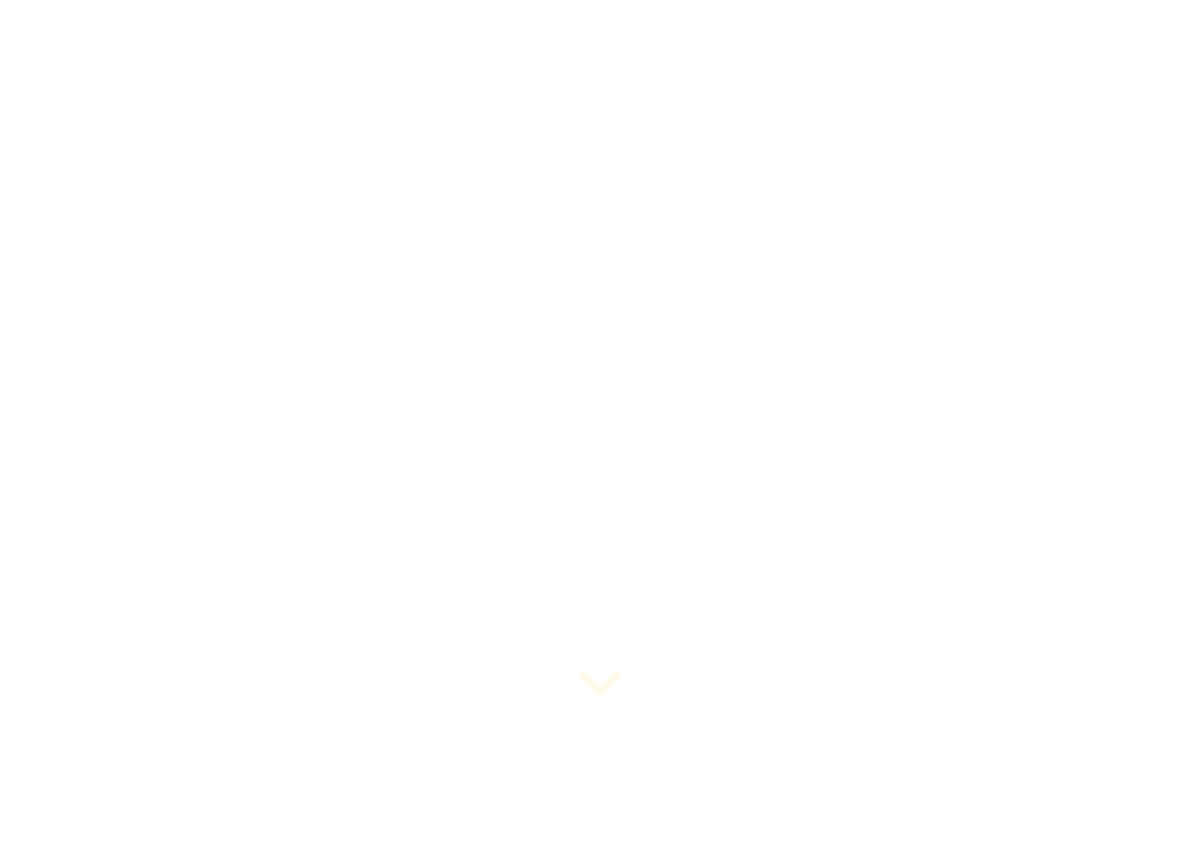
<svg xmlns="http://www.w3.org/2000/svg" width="1202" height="858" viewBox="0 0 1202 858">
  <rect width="100%" height="100%" fill="#fff"/>
  <path d="M616 671L600 687L584 671L579 676L600 697L621 676Z" fill="#fffae6" fill-rule="evenodd"/>
</svg>
